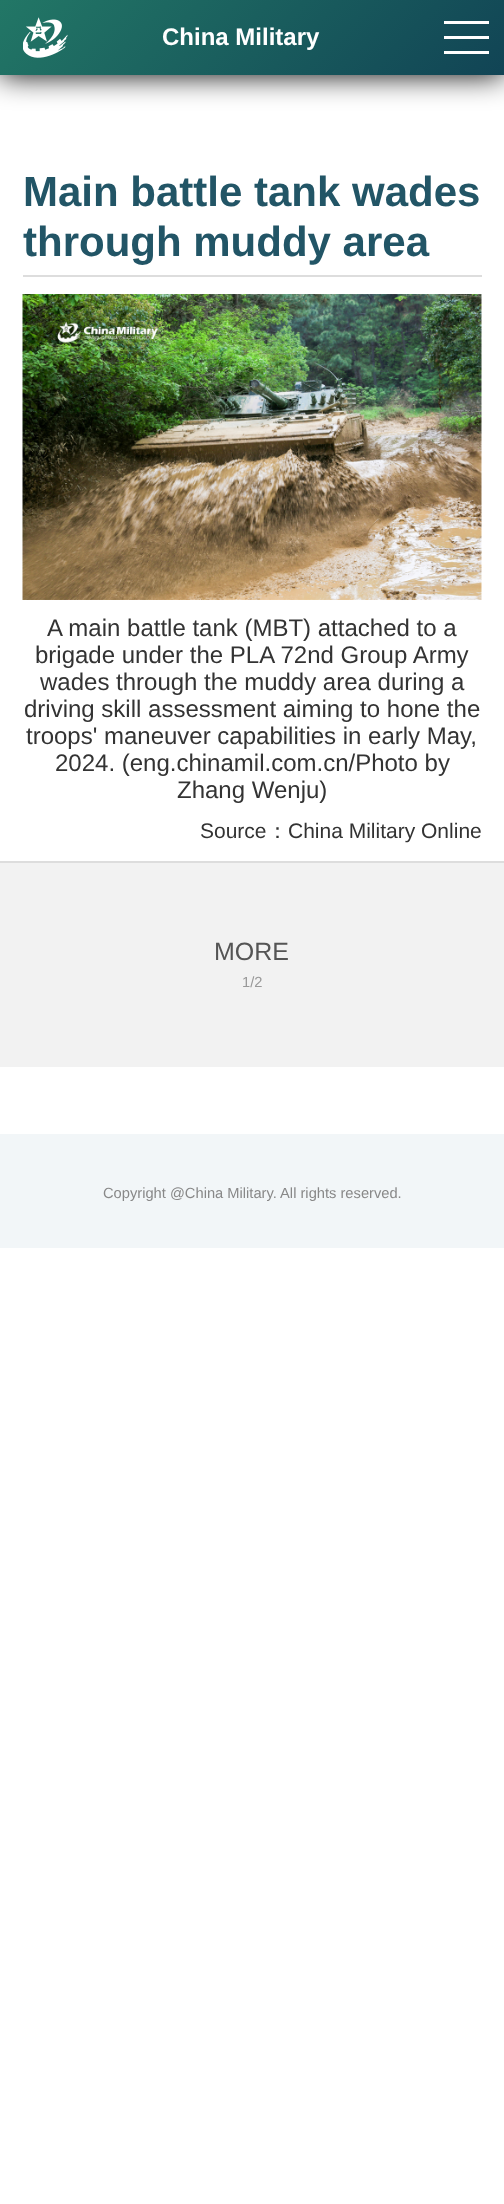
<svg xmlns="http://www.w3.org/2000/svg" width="504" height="2204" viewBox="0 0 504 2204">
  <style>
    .t1 { font: bold 24px Liberation Sans; fill: #fff; }
    .t2 { font: bold 42px Liberation Sans; fill: #256; }
    .t3 { font: 24px Liberation Sans; fill: #333; }
    .t4 { font: 21px Liberation Sans; fill: #333; }
    .t5 { font: 500 21px WenQuanYi Zen Hei; fill: #333; }
    .t6 { font: 25px Liberation Sans; fill: #555; }
    .t7 { font: 14.7px Liberation Sans; fill: #999; }
    .t8 { font: 14.7px Liberation Sans; fill: #888; }
  </style>
  <defs>
    <linearGradient id="g1" gradientUnits="userSpaceOnUse" x1="107" y1="-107" x2="397" y2="182"><stop offset="0" stop-color="#276"/><stop offset="1" stop-color="#145"/></linearGradient>
  </defs>
  <rect width="100%" height="100%" fill="#fff"/>
  <rect x="0" y="0" width="504" height="75" fill="#000" filter="blur(15px)"/>
  <rect x="0" y="0" width="504" height="75" fill="url(#g1)"/>
  <image x="23" y="17" width="45" height="41" href="images/1.png"/>
  <text x="162" y="45" class="t1">China Military</text>
  <rect x="444" y="36" width="45" height="3" fill="#fff"/>
  <rect x="444" y="21" width="45" height="3" fill="#fff"/>
  <rect x="444" y="51" width="45" height="3" fill="#fff"/>
  <text x="23" y="206" class="t2">Main battle tank wades</text>
  <text x="23" y="256" class="t2">through muddy area</text>
  <rect x="23" y="275" width="459" height="2" fill="#ddd"/>
  <image x="22" y="294" width="460" height="306" href="images/2.png"/>
  <text x="47" y="636" class="t3">A main battle tank (MBT) attached to a</text>
  <text x="35" y="663" class="t3">brigade under the PLA 72nd Group Army</text>
  <text x="40" y="690" class="t3">wades through the muddy area during a</text>
  <text x="24" y="717" class="t3">driving skill assessment aiming to hone the</text>
  <text x="26" y="744" class="t3">troops' maneuver capabilities in early May,</text>
  <text x="55" y="771" class="t3">2024. (eng.chinamil.com.cn/Photo by</text>
  <text x="177" y="798" class="t3">Zhang Wenju)</text>
  <text x="200" y="838" class="t4">Source</text>
  <text x="267" y="838" class="t5">：</text>
  <text x="288" y="838" class="t4">China Military Online</text>
  <rect x="0" y="863" width="504" height="204" fill="#f2f2f2"/>
  <rect x="0" y="861" width="504" height="2" fill="#ddd"/>
  <text x="214" y="960" class="t6">MORE</text>
  <text x="242" y="987" class="t7">1/2</text>
  <rect x="0" y="1134" width="504" height="114" fill="#f2f6f8"/>
  <text x="103" y="1198" class="t8">Copyright @China Military. All rights reserved.</text>
</svg>
